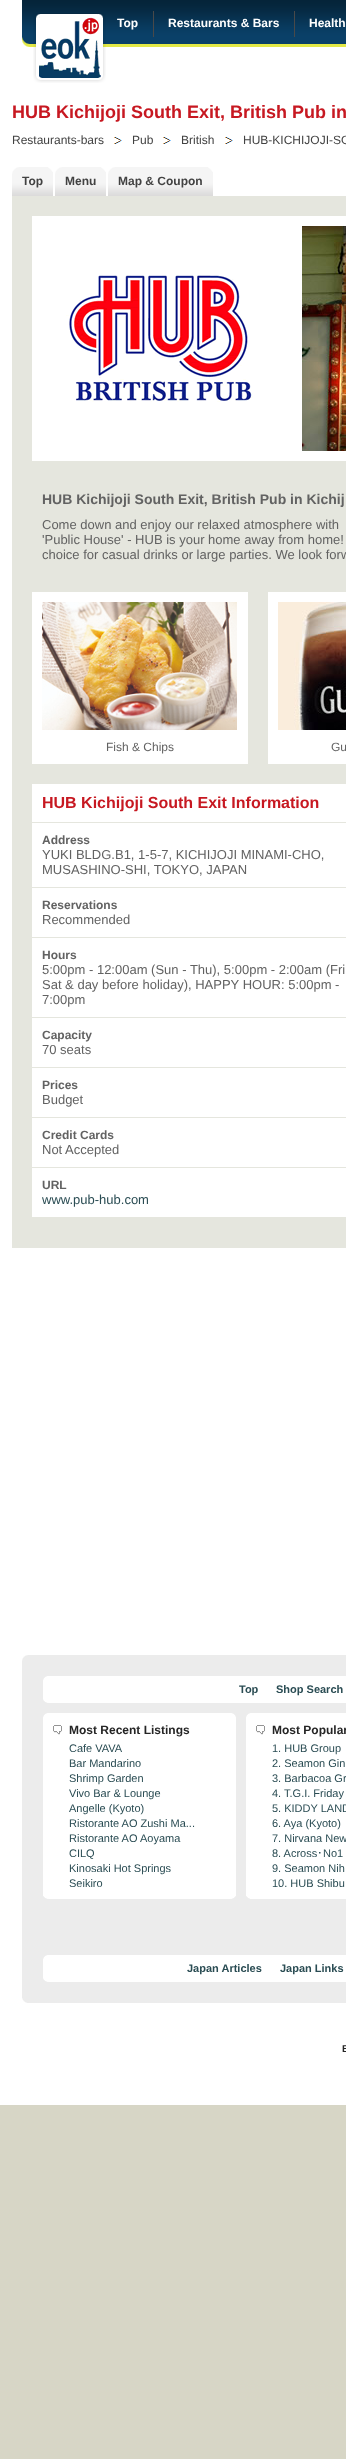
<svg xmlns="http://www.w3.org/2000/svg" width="346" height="2459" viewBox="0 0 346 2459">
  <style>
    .t1 { font: bold 12px Liberation Sans; fill: #fff; }
    .t2 { font: bold 18px Liberation Sans; fill: #c71821; }
    .t3 { font: 12px Liberation Sans; fill: #424242; }
    .t4 { font: bold 12px Liberation Sans; fill: #424242; }
    .t5 { font: bold 14px Liberation Sans; fill: #626262; }
    .t6 { font: 13px Liberation Sans; fill: #626262; }
    .t7 { font: 12px Liberation Sans; fill: #626262; }
    .t8 { font: bold 16px Liberation Sans; fill: #c71821; }
    .t9 { font: bold 12px Liberation Sans; fill: #626262; }
    .t10 { font: 13px Liberation Sans; fill: #2a4c53; }
    .t11 { font: bold 11px Liberation Sans; fill: #2a4c53; }
    .t12 { font: bold 12px Liberation Sans; fill: #252525; }
    .t13 { font: 11px Liberation Sans; fill: #2a4c53; }
    .t14 { font: 11px IPAGothic; fill: #2a4c53; }
    .t15 { font: bold 10px Liberation Sans; fill: #252525; }
  </style>
  <rect width="100%" height="100%" fill="#d7d6c6"/>
  <rect x="0" y="0" width="346" height="2105" fill="#fff"/>
  <image x="22" y="0" width="324" height="47" href="images/2.png"/>
  <image x="33" y="13" width="73" height="70" href="images/1.png"/>
  <text x="117" y="27" class="t1">Top</text>
  <rect x="153" y="11" width="1" height="26" fill="#494949"/>
  <text x="168" y="27" class="t1">Restaurants &amp; Bars</text>
  <rect x="294" y="11" width="1" height="26" fill="#494949"/>
  <text x="309" y="27" class="t1">Health</text>
  <text x="12" y="118" class="t2">HUB Kichijoji South Exit, British Pub in</text>
  <text x="12" y="144" class="t3">Restaurants-bars</text>
  <image x="114" y="137" width="8" height="7" href="images/3.png"/>
  <text x="132" y="144" class="t3">Pub</text>
  <image x="163" y="137" width="8" height="7" href="images/3.png"/>
  <text x="181" y="144" class="t3">British</text>
  <image x="225" y="137" width="8" height="7" href="images/3.png"/>
  <text x="243" y="144" class="t3">HUB-KICHIJOJI-SO</text>
  <image x="12" y="167" width="41" height="29" href="images/4.png"/>
  <image x="48" y="167" width="5" height="5" href="images/5.png"/>
  <text x="22" y="185" class="t4">Top</text>
  <image x="55" y="167" width="51" height="29" href="images/6.png"/>
  <image x="101" y="167" width="5" height="5" href="images/5.png"/>
  <text x="65" y="185" class="t4">Menu</text>
  <image x="108" y="167" width="105" height="29" href="images/7.png"/>
  <image x="208" y="167" width="5" height="5" href="images/5.png"/>
  <text x="118" y="185" class="t4">Map &amp; Coupon</text>
  <rect x="12" y="196" width="334" height="1052" fill="#e5e6de"/>
  <rect x="32" y="216" width="314" height="245" fill="#fff"/>
  <image x="66" y="275" width="187" height="127" href="images/8.png"/>
  <image x="302" y="226" width="44" height="225" href="images/9.png"/>
  <text x="42" y="504" class="t5">HUB Kichijoji South Exit, British Pub in Kichij</text>
  <text x="42" y="529" class="t6">Come down and enjoy our relaxed atmosphere with</text>
  <text x="42" y="544" class="t6">'Public House' - HUB is your home away from home!</text>
  <text x="42" y="559" class="t6">choice for casual drinks or large parties. We look forw</text>
  <rect x="32" y="592" width="216" height="172" fill="#fff"/>
  <image x="42" y="602" width="195" height="128" href="images/10.png"/>
  <text x="106" y="751" class="t7">Fish &amp; Chips</text>
  <rect x="268" y="592" width="78" height="172" fill="#fff"/>
  <image x="278" y="602" width="68" height="128" href="images/11.png"/>
  <text x="331" y="751" class="t7">Gu</text>
  <rect x="32" y="784" width="314" height="433" fill="#fff"/>
  <text x="42" y="808" class="t8">HUB Kichijoji South Exit Information</text>
  <rect x="32" y="822" width="314" height="1" fill="#e5e6de"/>
  <text x="42" y="844" class="t9">Address</text>
  <text x="42" y="859" class="t6">YUKI BLDG.B1, 1-5-7, KICHIJOJI MINAMI-CHO,</text>
  <text x="42" y="874" class="t6">MUSASHINO-SHI, TOKYO, JAPAN</text>
  <rect x="32" y="887" width="314" height="1" fill="#e5e6de"/>
  <text x="42" y="909" class="t9">Reservations</text>
  <text x="42" y="924" class="t6">Recommended</text>
  <rect x="32" y="937" width="314" height="1" fill="#e5e6de"/>
  <text x="42" y="959" class="t9">Hours</text>
  <text x="42" y="974" class="t6">5:00pm - 12:00am (Sun - Thu), 5:00pm - 2:00am (Fri</text>
  <text x="42" y="989" class="t6">Sat &amp; day before holiday), HAPPY HOUR: 5:00pm -</text>
  <text x="42" y="1004" class="t6">7:00pm</text>
  <rect x="32" y="1017" width="314" height="1" fill="#e5e6de"/>
  <text x="42" y="1039" class="t9">Capacity</text>
  <text x="42" y="1054" class="t6">70 seats</text>
  <rect x="32" y="1067" width="314" height="1" fill="#e5e6de"/>
  <text x="42" y="1089" class="t9">Prices</text>
  <text x="42" y="1104" class="t6">Budget</text>
  <rect x="32" y="1117" width="314" height="1" fill="#e5e6de"/>
  <text x="42" y="1139" class="t9">Credit Cards</text>
  <text x="42" y="1154" class="t6">Not Accepted</text>
  <rect x="32" y="1167" width="314" height="1" fill="#e5e6de"/>
  <text x="42" y="1189" class="t9">URL</text>
  <text x="42" y="1204" class="t10">www.pub-hub.com</text>
  <image x="22" y="1655" width="324" height="348" href="images/12.png"/>
  <image x="22" y="1998" width="5" height="5" href="images/13.png"/>
  <image x="43" y="1676" width="303" height="27" href="images/14.png"/>
  <text x="239" y="1693" class="t11">Top</text>
  <text x="276" y="1693" class="t11">Shop Search</text>
  <image x="43" y="1713" width="193" height="183" href="images/15.png"/>
  <image x="43" y="1896" width="193" height="3" href="images/16.png"/>
  <image x="53" y="1725" width="9" height="10" href="images/17.png"/>
  <text x="69" y="1734" class="t12">Most Recent Listings</text>
  <text x="69" y="1752" class="t13">Cafe VAVA</text>
  <text x="69" y="1767" class="t13">Bar Mandarino</text>
  <text x="69" y="1782" class="t13">Shrimp Garden</text>
  <text x="69" y="1797" class="t13">Vivo Bar &amp; Lounge</text>
  <text x="69" y="1812" class="t13">Angelle (Kyoto)</text>
  <text x="69" y="1827" class="t13">Ristorante AO Zushi Ma...</text>
  <text x="69" y="1842" class="t13">Ristorante AO Aoyama</text>
  <text x="69" y="1857" class="t13">CILQ</text>
  <text x="69" y="1872" class="t13">Kinosaki Hot Springs</text>
  <text x="69" y="1887" class="t13">Seikiro</text>
  <image x="246" y="1713" width="100" height="186" href="images/18.png"/>
  <image x="246" y="1896" width="4" height="3" href="images/19.png"/>
  <image x="256" y="1725" width="9" height="10" href="images/17.png"/>
  <text x="272" y="1734" class="t12">Most Popular</text>
  <text x="272" y="1752" class="t13">1. HUB Group</text>
  <text x="272" y="1767" class="t13">2. Seamon Gin</text>
  <text x="272" y="1782" class="t13">3. Barbacoa Gr</text>
  <text x="272" y="1797" class="t13">4. T.G.I. Friday</text>
  <text x="272" y="1812" class="t13">5. KIDDY LAND</text>
  <text x="272" y="1827" class="t13">6. Aya (Kyoto)</text>
  <text x="272" y="1842" class="t13">7. Nirvana New</text>
  <text x="272" y="1857" class="t13">8. Across</text>
  <text x="317" y="1857" class="t14">･</text>
  <text x="323" y="1857" class="t13">No1</text>
  <text x="272" y="1872" class="t13">9. Seamon Nih</text>
  <text x="272" y="1887" class="t13">10. HUB Shibu</text>
  <image x="43" y="1955" width="303" height="27" href="images/14.png"/>
  <text x="187" y="1972" class="t11">Japan Articles</text>
  <text x="280" y="1972" class="t11">Japan Links</text>
  <text x="342" y="2052" class="t15">E</text>
</svg>
